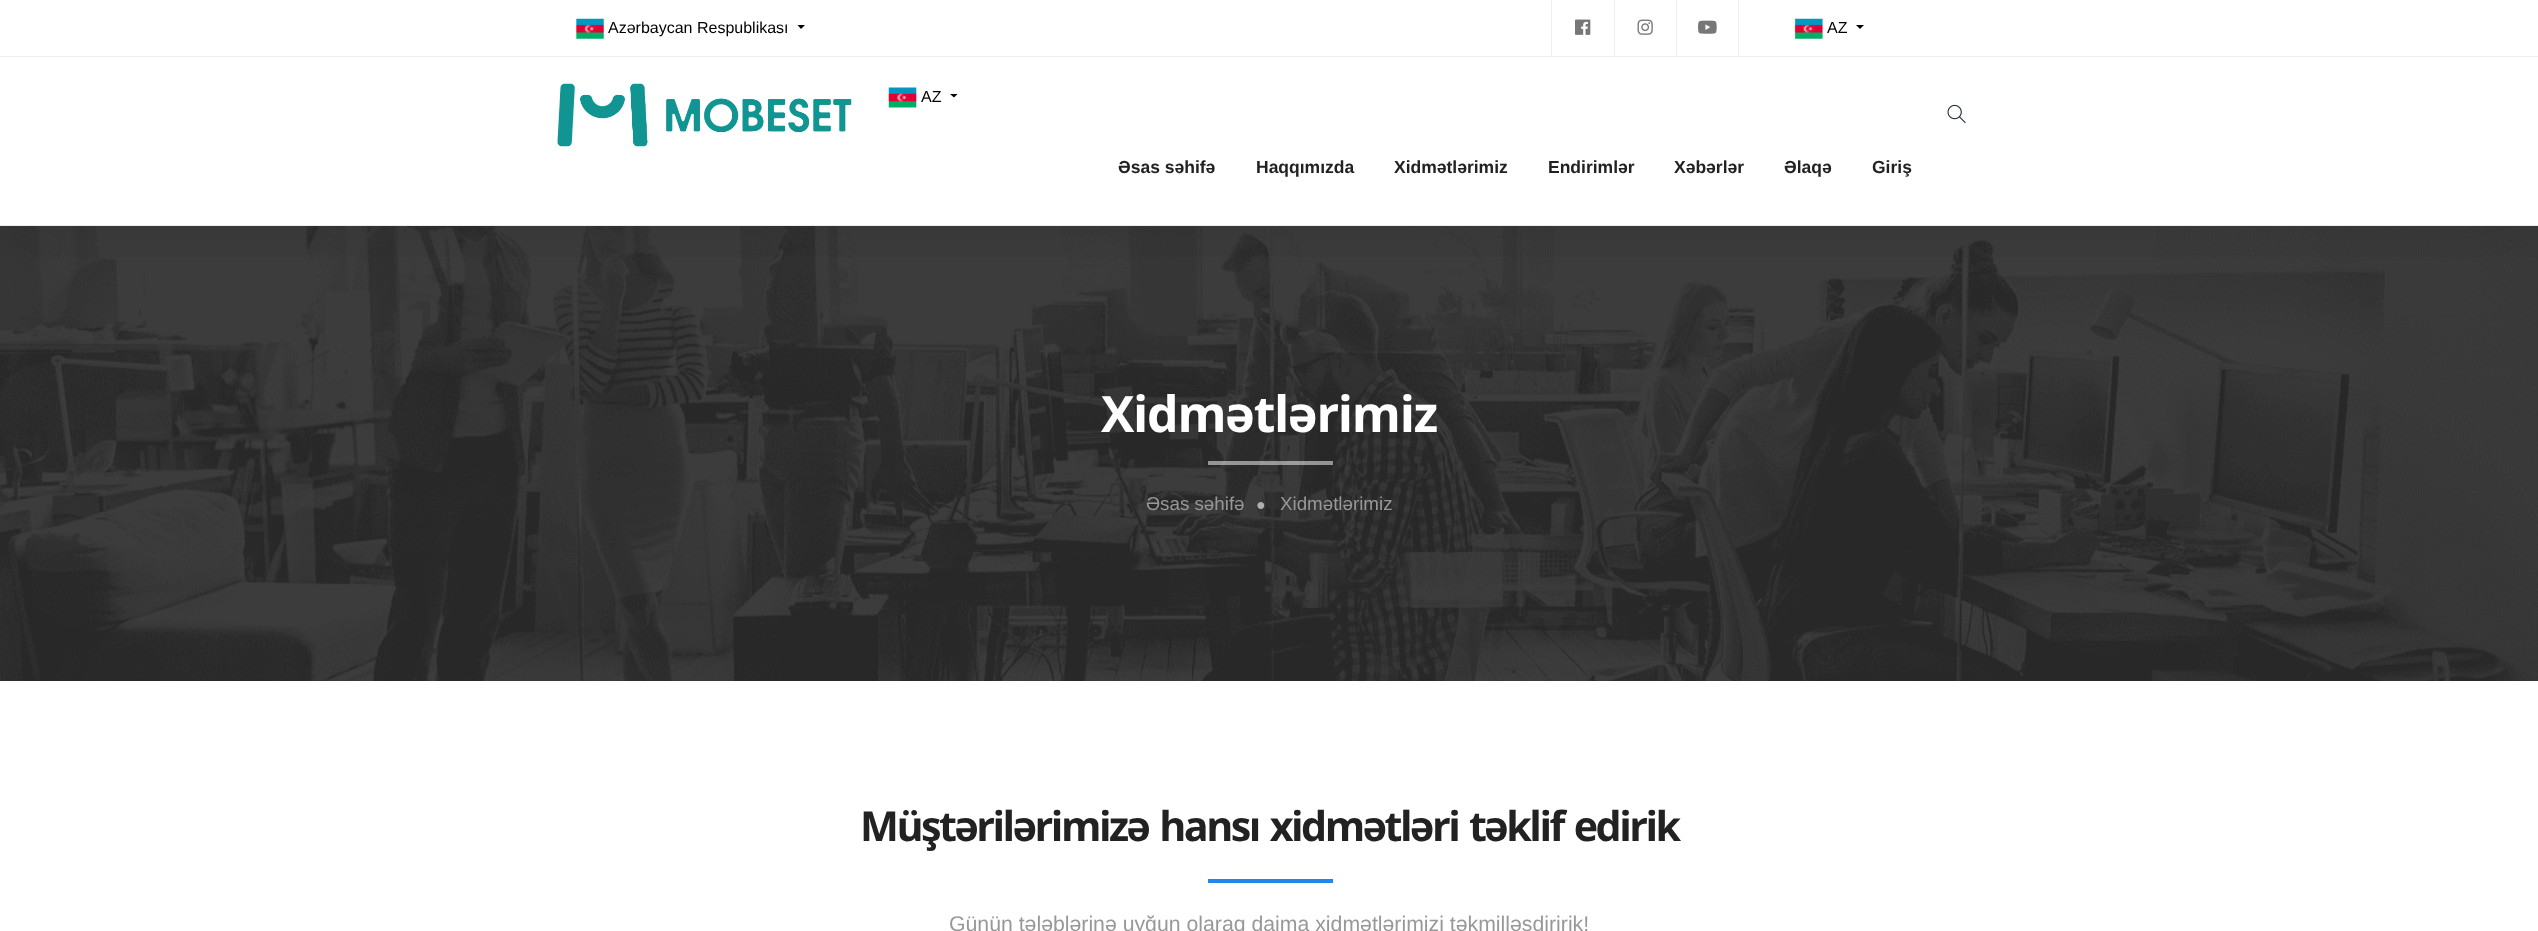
<svg xmlns="http://www.w3.org/2000/svg" width="2538" height="931" viewBox="0 0 2538 931">
  <style>
    .t1 { font: 16px Liberation Sans; fill: #000; }
    .t2 { font: bold 17.5px Liberation Sans; fill: #222; }
    .t3 { font: bold 50px Open Sans; letter-spacing: -1.25px; fill: #fff; }
    .t4 { font: 18.75px Liberation Sans; fill: #989898; }
    .t5 { font: 16px Liberation Sans; fill: #afafaf; }
    .t6 { font: bold 41.25px Open Sans; letter-spacing: -2.5px; fill: #222; }
    .t7 { font: 21.25px Liberation Sans; fill: #989898; }
  </style>
  <defs>
    <clipPath id="clip1"><rect x="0" y="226" width="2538" height="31"/></clipPath>
  </defs>
  <rect width="100%" height="100%" fill="#fff"/>
  <image x="0" y="226" width="2538" height="455" href="images/9.png"/>
  <g clip-path="url(#clip1)">
    <rect x="0" y="58" width="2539" height="168" fill="#00000017" filter="blur(40.5px)"/>
  </g>
  <rect x="0" y="9" width="2538" height="49" fill="#fff"/>
  <rect x="0" y="56" width="2538" height="1" fill="#eee"/>
  <image x="576" y="18" width="28" height="21" href="images/1.png"/>
  <text x="608" y="33" class="t1">Azərbaycan Respublikası</text>
  <path d="M797.5 25H805L801 29Z" fill="#000"/>
  <rect x="1551" y="0" width="1" height="56" fill="#eee"/>
  <image x="1575" y="19" width="16" height="16" href="images/2.png"/>
  <rect x="1614" y="0" width="1" height="56" fill="#eee"/>
  <image x="1637" y="19" width="16" height="16" href="images/3.png"/>
  <rect x="1738" y="0" width="1" height="56" fill="#eee"/>
  <rect x="1676" y="0" width="1" height="56" fill="#eee"/>
  <image x="1698" y="20" width="19" height="14" href="images/4.png"/>
  <image x="1794" y="18" width="29" height="21" href="images/5.png"/>
  <text x="1827" y="33" class="t1">AZ</text>
  <path d="M1856 25H1864L1860 29Z" fill="#000"/>
  <rect x="0" y="225" width="2538" height="1" fill="#eee"/>
  <image x="557" y="83" width="295" height="64" href="images/6.png"/>
  <image x="888" y="87" width="29" height="21" href="images/7.png"/>
  <text x="921" y="102" class="t1">AZ</text>
  <path d="M950 94H957.5L954 97.5Z" fill="#000"/>
  <text x="1118" y="173" class="t2">Əsas səhifə</text>
  <text x="1256" y="173" class="t2">Haqqımızda</text>
  <text x="1394" y="173" class="t2">Xidmətlərimiz</text>
  <text x="1548" y="173" class="t2">Endirimlər</text>
  <text x="1674" y="173" class="t2">Xəbərlər</text>
  <text x="1784" y="173" class="t2">Əlaqə</text>
  <text x="1872" y="173" class="t2">Giriş</text>
  <image x="1947" y="104" width="19" height="20" href="images/8.png"/>
  <text x="1101" y="432" class="t3">Xidmətlərimiz</text>
  <rect x="1208" y="461" width="125" height="4" fill="#ffffff80"/>
  <text x="1146" y="510" class="t4">Əsas səhifə</text>
  <text x="1256" y="510" class="t5">●</text>
  <text x="1280" y="510" class="t4">Xidmətlərimiz</text>
  <text x="860" y="841" word-spacing="2.5" class="t6">Müştərilərimizə hansı xidmətləri təklif edirik</text>
  <rect x="1208" y="879" width="125" height="4" fill="#2387ea"/>
  <text x="949" y="931" class="t7">Günün tələblərinə uyğun olaraq daima xidmətlərimizi təkmilləşdiririk!</text>
</svg>
